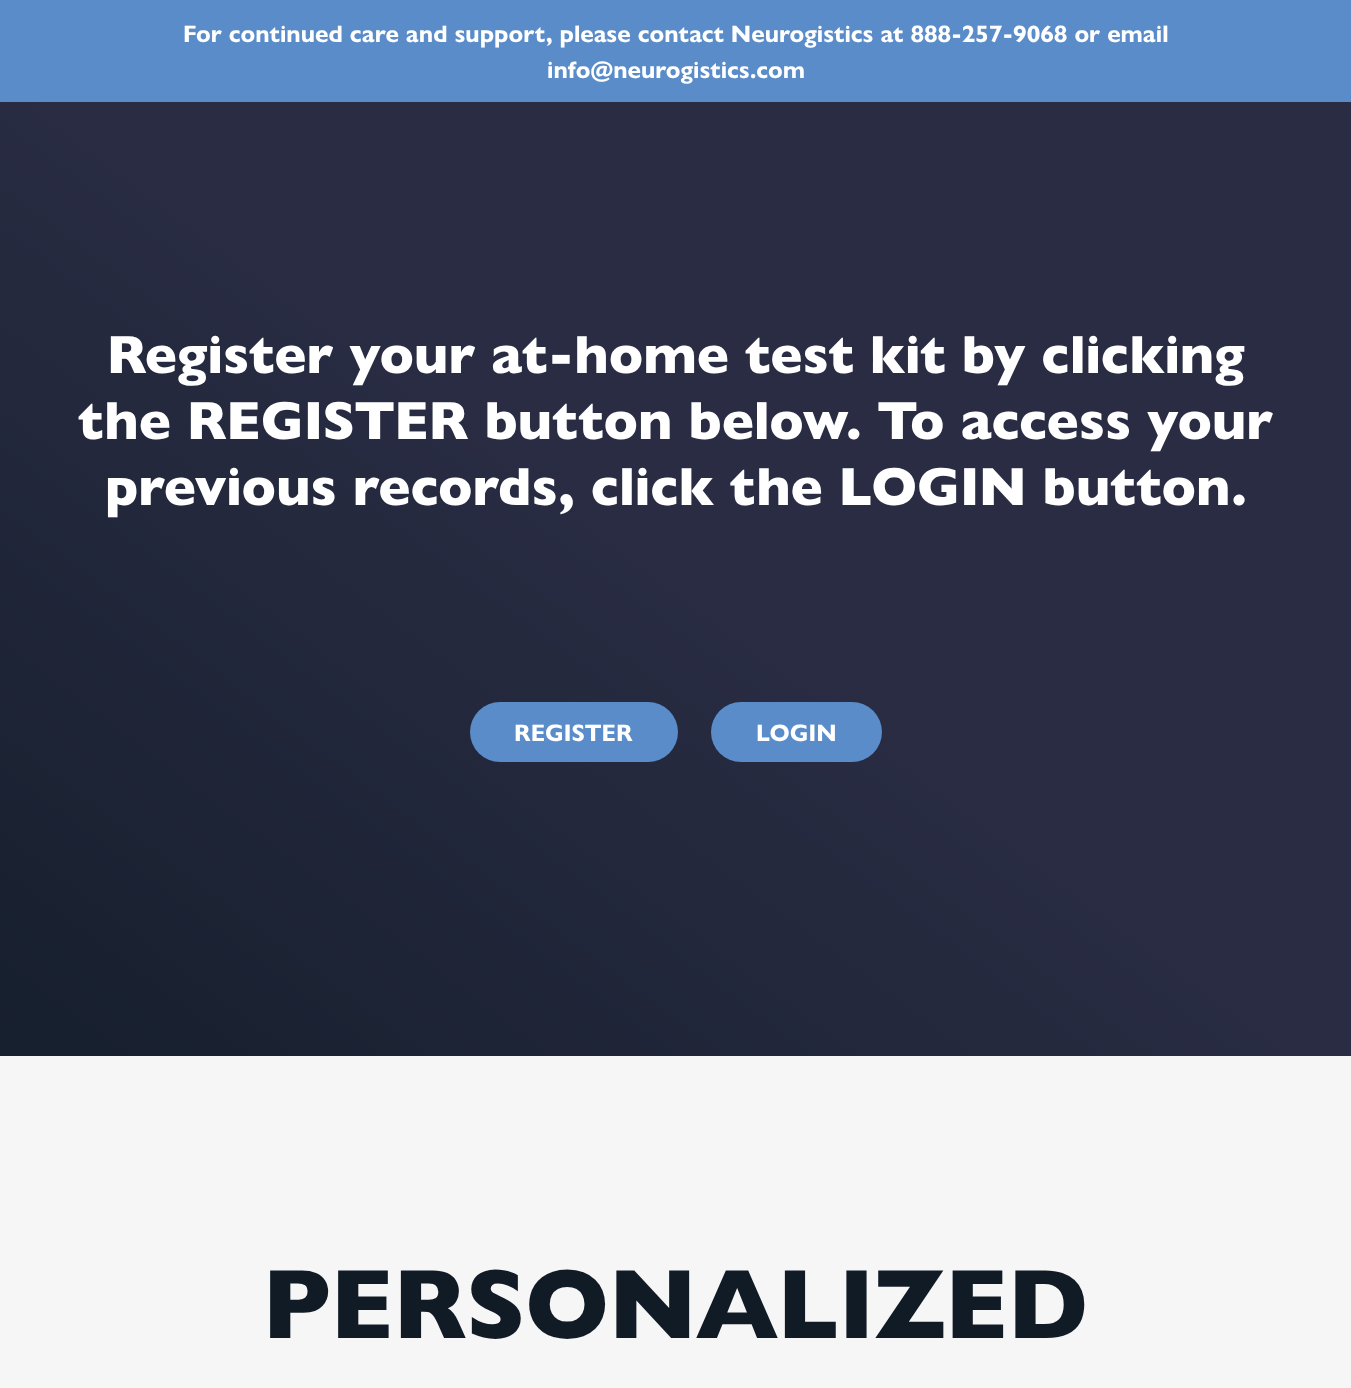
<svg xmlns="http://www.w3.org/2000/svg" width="1351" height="1388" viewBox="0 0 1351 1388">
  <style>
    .t1 { font: bold 24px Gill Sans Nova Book; fill: #fff; }
    .t2 { font: 900 54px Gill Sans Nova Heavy; fill: #fff; }
    .t3 { font: 900 99px Gill Sans Nova Heavy; fill: #101b26; }
  </style>
  <defs>
    <linearGradient id="g1" gradientUnits="userSpaceOnUse" x1="1254" y1="-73" x2="97" y2="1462"><stop offset="0.44" stop-color="#292c43"/><stop offset="1" stop-color="#101b26"/></linearGradient>
  </defs>
  <rect width="100%" height="100%" fill="#fff"/>
  <rect x="0" y="0" width="1351" height="102" fill="#598cc9"/>
  <text x="183" y="42" class="t1">For continued care and support, please contact Neurogistics at 888-257-9068 or email</text>
  <text x="547" y="78" class="t1">info@neurogistics.com</text>
  <rect x="0" y="102" width="1351" height="954" fill="url(#g1)"/>
  <text x="107" y="373" class="t2">Register your at-home test kit by clicking</text>
  <text x="78" y="439" class="t2">the REGISTER button below. To access your</text>
  <text x="105" y="505" class="t2">previous records, click the LOGIN button.</text>
  <rect x="470" y="702" width="208" height="60" rx="30" fill="#598cc9"/>
  <text x="514" y="741" class="t1">REGISTER</text>
  <rect x="711" y="702" width="171" height="60" rx="30" fill="#598cc9"/>
  <text x="756" y="741" class="t1">LOGIN</text>
  <rect x="0" y="1056" width="1351" height="332" fill="#f7f6f7"/>
  <text x="263" y="1338" class="t3">PERSONALIZED</text>
</svg>
